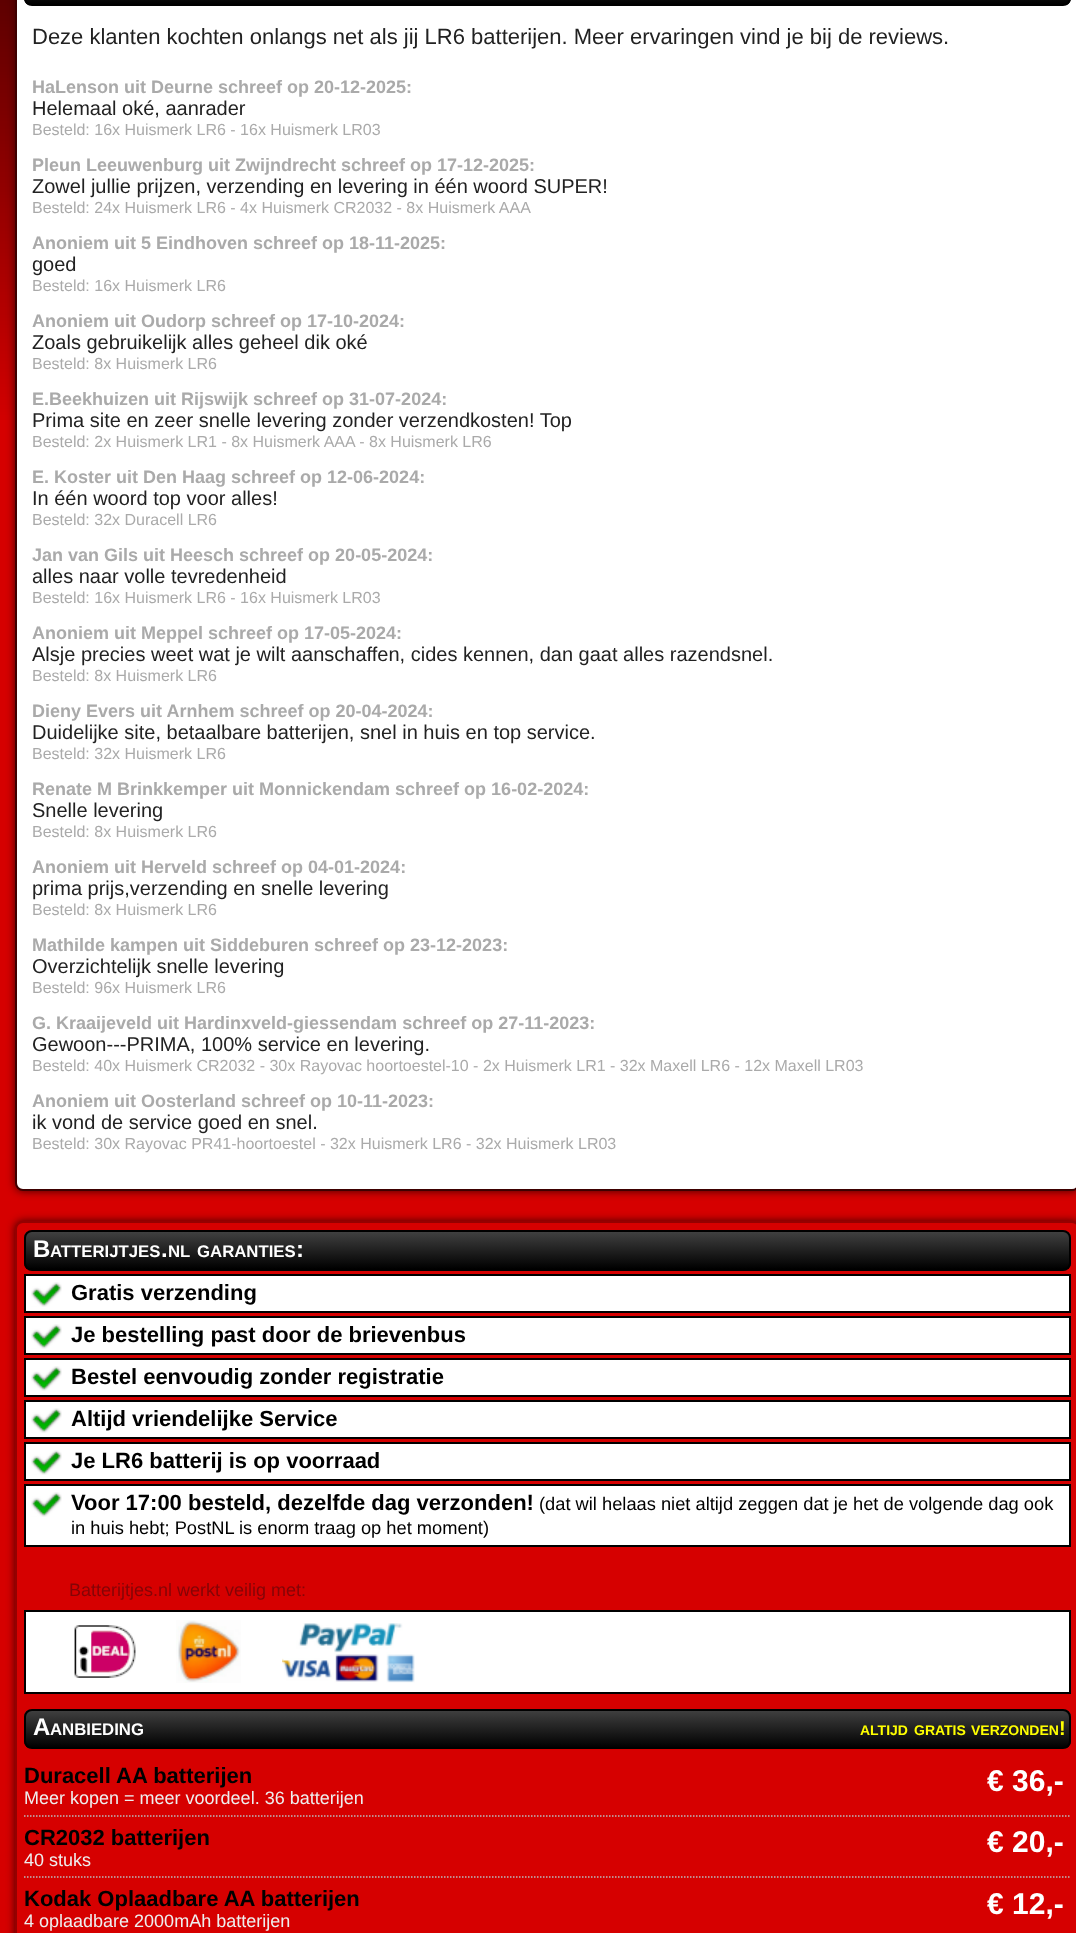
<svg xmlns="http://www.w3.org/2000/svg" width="1076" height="1933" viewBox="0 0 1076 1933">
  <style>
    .t1 { font: 22px Liberation Sans; fill: #222; }
    .t2 { font: bold 18px Liberation Sans; fill: #aaa; }
    .t3 { font: 20px Liberation Sans; fill: #222; }
    .t4 { font: 16px Liberation Sans; fill: #aaa; }
    .t5 { font: bold 24px Liberation Sans; fill: #fff; }
    .t6 { font: bold 16.75px Liberation Sans; fill: #fff; }
    .t7 { font: bold 22px Liberation Sans; fill: #000; }
    .t8 { font: 18.3px Liberation Sans; fill: #000; }
    .t9 { font: 18px Liberation Sans; fill: #840406; }
    .t10 { font: bold 14px Liberation Sans; fill: #ff0; }
    .t11 { font: bold 20px Liberation Sans; fill: #ff0; }
    .t12 { font: bold 30px Liberation Sans; fill: #fff; }
    .t13 { font: 18px Liberation Sans; fill: #eee; }
  </style>
  <defs>
    <clipPath id="clip1"><rect x="24" y="-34" width="1047" height="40" rx="8"/></clipPath>
    <linearGradient id="g1" gradientUnits="userSpaceOnUse" x1="26" y1="-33" x2="26" y2="4.5"><stop offset="0" stop-color="#404040"/><stop offset="1" stop-color="#000"/></linearGradient>
    <clipPath id="clip2"><rect x="24" y="1230" width="1047" height="41" rx="8"/></clipPath>
    <linearGradient id="g2" gradientUnits="userSpaceOnUse" x1="26" y1="1232" x2="26" y2="1269"><stop offset="0" stop-color="#404040"/><stop offset="1" stop-color="#000"/></linearGradient>
    <clipPath id="clip3"><rect x="24" y="1709" width="1047" height="40" rx="8"/></clipPath>
    <linearGradient id="g3" gradientUnits="userSpaceOnUse" x1="26" y1="1710" x2="26" y2="1748"><stop offset="0" stop-color="#404040"/><stop offset="1" stop-color="#000"/></linearGradient>
  </defs>
  <rect width="100%" height="100%" fill="#d60000"/>
  <image x="0" y="0" width="15" height="420" href="images/1.png"/>
  <rect x="15" y="-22" width="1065" height="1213" rx="8" fill="#3e0000" filter="blur(4.5px)"/>
  <rect x="16" y="-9" width="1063" height="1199" rx="7" fill="#fff" stroke="#3e0000" stroke-width="2"/>
  <g clip-path="url(#clip1)">
    <rect x="24" y="0" width="1047" height="5" fill="url(#g1)"/>
  </g>
  <rect x="25" y="-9" width="1045" height="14" rx="7" fill="none" stroke="#000" stroke-width="2"/>
  <text x="32" y="44" class="t1">Deze klanten kochten onlangs net als jij LR6 batterijen. Meer ervaringen vind je bij de reviews.</text>
  <text x="32" y="93" class="t2">HaLenson uit Deurne schreef op 20-12-2025:</text>
  <text x="32" y="115" class="t3">Helemaal oké, aanrader</text>
  <text x="32" y="135" class="t4">Besteld: 16x Huismerk LR6 - 16x Huismerk LR03</text>
  <text x="32" y="171" class="t2">Pleun Leeuwenburg uit Zwijndrecht schreef op 17-12-2025:</text>
  <text x="32" y="193" class="t3">Zowel jullie prijzen, verzending en levering in één woord SUPER!</text>
  <text x="32" y="213" class="t4">Besteld: 24x Huismerk LR6 - 4x Huismerk CR2032 - 8x Huismerk AAA</text>
  <text x="32" y="249" class="t2">Anoniem uit 5 Eindhoven schreef op 18-11-2025:</text>
  <text x="32" y="271" class="t3">goed</text>
  <text x="32" y="291" class="t4">Besteld: 16x Huismerk LR6</text>
  <text x="32" y="327" class="t2">Anoniem uit Oudorp schreef op 17-10-2024:</text>
  <text x="32" y="349" class="t3">Zoals gebruikelijk alles geheel dik oké</text>
  <text x="32" y="369" class="t4">Besteld: 8x Huismerk LR6</text>
  <text x="32" y="405" class="t2">E.Beekhuizen uit Rijswijk schreef op 31-07-2024:</text>
  <text x="32" y="427" class="t3">Prima site en zeer snelle levering zonder verzendkosten! Top</text>
  <text x="32" y="447" class="t4">Besteld: 2x Huismerk LR1 - 8x Huismerk AAA - 8x Huismerk LR6</text>
  <text x="32" y="483" class="t2">E. Koster uit Den Haag schreef op 12-06-2024:</text>
  <text x="32" y="505" class="t3">In één woord top voor alles!</text>
  <text x="32" y="525" class="t4">Besteld: 32x Duracell LR6</text>
  <text x="32" y="561" class="t2">Jan van Gils uit Heesch schreef op 20-05-2024:</text>
  <text x="32" y="583" class="t3">alles naar volle tevredenheid</text>
  <text x="32" y="603" class="t4">Besteld: 16x Huismerk LR6 - 16x Huismerk LR03</text>
  <text x="32" y="639" class="t2">Anoniem uit Meppel schreef op 17-05-2024:</text>
  <text x="32" y="661" class="t3">Alsje precies weet wat je wilt aanschaffen, cides kennen, dan gaat alles razendsnel.</text>
  <text x="32" y="681" class="t4">Besteld: 8x Huismerk LR6</text>
  <text x="32" y="717" class="t2">Dieny Evers uit Arnhem schreef op 20-04-2024:</text>
  <text x="32" y="739" class="t3">Duidelijke site, betaalbare batterijen, snel in huis en top service.</text>
  <text x="32" y="759" class="t4">Besteld: 32x Huismerk LR6</text>
  <text x="32" y="795" class="t2">Renate M Brinkkemper uit Monnickendam schreef op 16-02-2024:</text>
  <text x="32" y="817" class="t3">Snelle levering</text>
  <text x="32" y="837" class="t4">Besteld: 8x Huismerk LR6</text>
  <text x="32" y="873" class="t2">Anoniem uit Herveld schreef op 04-01-2024:</text>
  <text x="32" y="895" class="t3">prima prijs,verzending en snelle levering</text>
  <text x="32" y="915" class="t4">Besteld: 8x Huismerk LR6</text>
  <text x="32" y="951" class="t2">Mathilde kampen uit Siddeburen schreef op 23-12-2023:</text>
  <text x="32" y="973" class="t3">Overzichtelijk snelle levering</text>
  <text x="32" y="993" class="t4">Besteld: 96x Huismerk LR6</text>
  <text x="32" y="1029" class="t2">G. Kraaijeveld uit Hardinxveld-giessendam schreef op 27-11-2023:</text>
  <text x="32" y="1051" class="t3">Gewoon---PRIMA, 100% service en levering.</text>
  <text x="32" y="1071" class="t4">Besteld: 40x Huismerk CR2032 - 30x Rayovac hoortoestel-10 - 2x Huismerk LR1 - 32x Maxell LR6 - 12x Maxell LR03</text>
  <text x="32" y="1107" class="t2">Anoniem uit Oosterland schreef op 10-11-2023:</text>
  <text x="32" y="1129" class="t3">ik vond de service goed en snel.</text>
  <text x="32" y="1149" class="t4">Besteld: 30x Rayovac PR41-hoortoestel - 32x Huismerk LR6 - 32x Huismerk LR03</text>
  <rect x="15" y="1221" width="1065" height="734" rx="8" fill="#3e0000" filter="blur(4.5px)"/>
  <rect x="16" y="1222" width="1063" height="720" rx="7" fill="#d60000" stroke="#950000" stroke-width="2"/>
  <g clip-path="url(#clip2)">
    <rect x="24" y="1232" width="1047" height="37" fill="url(#g2)"/>
  </g>
  <rect x="25" y="1231" width="1045" height="39" rx="7" fill="none" stroke="#000" stroke-width="2"/>
  <text x="33" y="1257" class="t5">B</text>
  <text x="50" y="1257" class="t6">ATTERIJTJES</text>
  <text x="161" y="1257" class="t5">.</text>
  <text x="168" y="1257" class="t6">NL</text>
  <text x="197" y="1257" class="t6">GARANTIES</text>
  <text x="296" y="1257" class="t5">:</text>
  <rect x="26" y="1276" width="1043" height="35" fill="#fff"/>
  <image x="31" y="1282" width="31" height="25" href="images/2.png"/>
  <rect x="25" y="1275" width="1045" height="37" fill="none" stroke="#000" stroke-width="2"/>
  <text x="71" y="1300" class="t7">Gratis verzending</text>
  <rect x="26" y="1318" width="1043" height="35" fill="#fff"/>
  <image x="31" y="1324" width="31" height="25" href="images/2.png"/>
  <rect x="25" y="1317" width="1045" height="37" fill="none" stroke="#000" stroke-width="2"/>
  <text x="71" y="1342" class="t7">Je bestelling past door de brievenbus</text>
  <rect x="26" y="1360" width="1043" height="35" fill="#fff"/>
  <image x="31" y="1366" width="31" height="25" href="images/2.png"/>
  <rect x="25" y="1359" width="1045" height="37" fill="none" stroke="#000" stroke-width="2"/>
  <text x="71" y="1384" class="t7">Bestel eenvoudig zonder registratie</text>
  <rect x="26" y="1402" width="1043" height="35" fill="#fff"/>
  <image x="31" y="1408" width="31" height="25" href="images/2.png"/>
  <rect x="25" y="1401" width="1045" height="37" fill="none" stroke="#000" stroke-width="2"/>
  <text x="71" y="1426" class="t7">Altijd vriendelijke Service</text>
  <rect x="26" y="1444" width="1043" height="35" fill="#fff"/>
  <image x="31" y="1450" width="31" height="25" href="images/2.png"/>
  <rect x="25" y="1443" width="1045" height="37" fill="none" stroke="#000" stroke-width="2"/>
  <text x="71" y="1468" class="t7">Je LR6 batterij is op voorraad</text>
  <rect x="26" y="1486" width="1043" height="59" fill="#fff"/>
  <image x="31" y="1492" width="31" height="25" href="images/2.png"/>
  <rect x="25" y="1485" width="1045" height="61" fill="none" stroke="#000" stroke-width="2"/>
  <text x="71" y="1510" class="t7">Voor 17:00 besteld, dezelfde dag verzonden!</text>
  <text x="539" y="1510" class="t8">(dat wil helaas niet altijd zeggen dat je het de volgende dag ook</text>
  <text x="71" y="1534" class="t8">in huis hebt; PostNL is enorm traag op het moment)</text>
  <text x="69" y="1596" class="t9">Batterijtjes.nl werkt veilig met:</text>
  <rect x="25" y="1611" width="1045" height="82" fill="#fff" stroke="#000" stroke-width="2"/>
  <image x="74" y="1625" width="62" height="53" href="images/3.png"/>
  <image x="176" y="1620" width="65" height="63" href="images/4.png"/>
  <image x="282" y="1623" width="133" height="60" href="images/5.png"/>
  <g clip-path="url(#clip3)">
    <rect x="24" y="1710" width="1047" height="38" fill="url(#g3)"/>
  </g>
  <rect x="25" y="1710" width="1045" height="38" rx="7" fill="none" stroke="#000" stroke-width="2"/>
  <text x="33" y="1735" class="t5">A</text>
  <text x="50" y="1735" class="t6">ANBIEDING</text>
  <text x="860" y="1735" class="t10">ALTIJD</text>
  <text x="914" y="1735" class="t10">GRATIS</text>
  <text x="971" y="1735" class="t10">VERZONDEN</text>
  <text x="1059" y="1735" class="t11">!</text>
  <path d="M24 1816H1071" fill="none" stroke="#bbb" stroke-width="1.5" stroke-dasharray="1.5 1.5"/>
  <text x="24" y="1783" class="t7">Duracell AA batterijen</text>
  <text x="987" y="1791" class="t12">€ 36,-</text>
  <text x="24" y="1804" class="t13">Meer kopen = meer voordeel. 36 batterijen</text>
  <path d="M24 1877H1071" fill="none" stroke="#bbb" stroke-width="1.5" stroke-dasharray="1.5 1.5"/>
  <text x="24" y="1845" class="t7">CR2032 batterijen</text>
  <text x="987" y="1852" class="t12">€ 20,-</text>
  <text x="24" y="1866" class="t13">40 stuks</text>
  <text x="24" y="1906" class="t7">Kodak Oplaadbare AA batterijen</text>
  <text x="987" y="1914" class="t12">€ 12,-</text>
  <text x="24" y="1927" class="t13">4 oplaadbare 2000mAh batterijen</text>
</svg>
